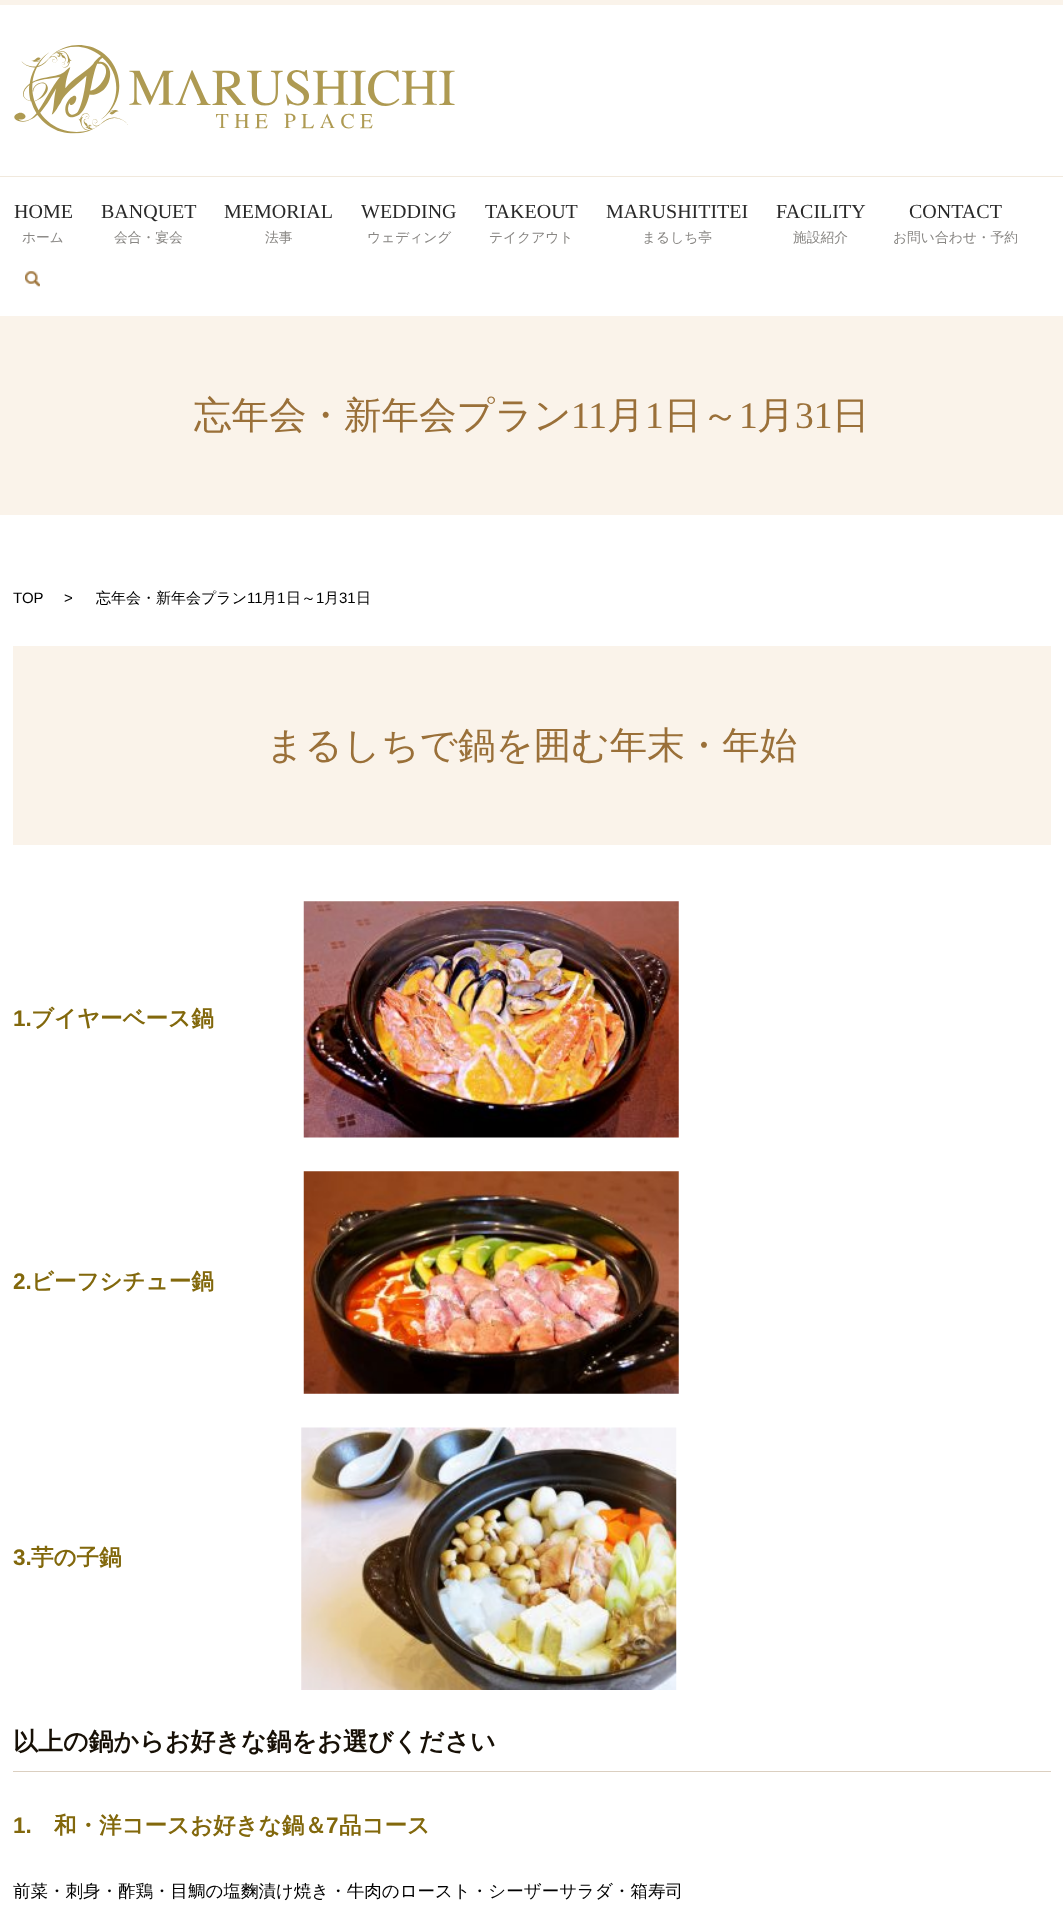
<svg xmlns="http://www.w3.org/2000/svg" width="1063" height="1910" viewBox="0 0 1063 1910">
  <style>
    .t1 { font: 20px Liberation Serif; fill: #292929; }
    .t2 { font: 500 13.75px WenQuanYi Zen Hei; fill: #898784; }
    .t3 { font: 500 37.5px WenQuanYi Zen Hei; fill: #9a7039; }
    .t4 { font: 37.5px Liberation Serif; fill: #9a7039; }
    .t5 { font: 15px Liberation Sans; fill: #000; }
    .t6 { font: 500 15px WenQuanYi Zen Hei; fill: #000; }
    .t7 { font: bold 22.5px Liberation Sans; fill: #82680c; }
    .t8 { font: bold 22.5px WenQuanYi Zen Hei; fill: #82680c; }
    .t9 { font: bold 25px WenQuanYi Zen Hei; fill: #171006; }
    .t10 { font: 500 17.5px WenQuanYi Zen Hei; fill: #000; }
  </style>
  <rect width="100%" height="100%" fill="#fff"/>
  <rect x="0" y="0" width="1063" height="5" fill="#faf3ea"/>
  <image x="14" y="45" width="441" height="89" href="images/1.png"/>
  <rect x="0" y="176" width="1063" height="1" fill="#f1e9dd"/>
  <text x="14" y="218" class="t1">HOME</text>
  <text x="22" y="242" class="t2">ホーム</text>
  <text x="101" y="218" class="t1">BANQUET</text>
  <text x="114" y="242" class="t2">会合・宴会</text>
  <text x="224" y="218" class="t1">MEMORIAL</text>
  <text x="265" y="242" class="t2">法事</text>
  <text x="361" y="218" class="t1">WEDDING</text>
  <text x="367" y="242" class="t2">ウェディング</text>
  <text x="485" y="218" class="t1">TAKEOUT</text>
  <text x="489" y="242" class="t2">テイクアウト</text>
  <text x="606" y="218" class="t1">MARUSHITITEI</text>
  <text x="642" y="242" class="t2">まるしち亭</text>
  <text x="776" y="218" class="t1">FACILITY</text>
  <text x="793" y="242" class="t2">施設紹介</text>
  <text x="909" y="218" class="t1">CONTACT</text>
  <text x="893" y="242" class="t2">お問い合わせ・予約</text>
  <image x="25" y="271" width="15" height="16" href="images/2.png"/>
  <rect x="0" y="316" width="1063" height="199" fill="#faf3ea"/>
  <text x="194" y="428" class="t3">忘年会・新年会プラン</text>
  <text x="571" y="428" class="t4">11</text>
  <text x="607" y="428" class="t3">月</text>
  <text x="645" y="428" class="t4">1</text>
  <text x="664" y="428" class="t3">日～</text>
  <text x="739" y="428" class="t4">1</text>
  <text x="757" y="428" class="t3">月</text>
  <text x="795" y="428" class="t4">31</text>
  <text x="832" y="428" class="t3">日</text>
  <text x="13" y="603" class="t5">TOP</text>
  <text x="64" y="603" class="t5">&gt;</text>
  <text x="96" y="603" class="t6">忘年会・新年会プラン</text>
  <text x="247" y="603" class="t5">11</text>
  <text x="262" y="603" class="t6">月</text>
  <text x="277" y="603" class="t5">1</text>
  <text x="286" y="603" class="t6">日～</text>
  <text x="316" y="603" class="t5">1</text>
  <text x="324" y="603" class="t6">月</text>
  <text x="339" y="603" class="t5">31</text>
  <text x="356" y="603" class="t6">日</text>
  <rect x="13" y="646" width="1038" height="199" fill="#faf3ea"/>
  <text x="266" y="758" class="t3">まるしちで鍋を囲む年末・年始</text>
  <text x="13" y="1026" class="t7">1.</text>
  <text x="31" y="1026" class="t8">ブイヤーベース鍋</text>
  <image x="303" y="901" width="376" height="237" href="images/3.png"/>
  <text x="13" y="1289" class="t7">2.</text>
  <text x="31" y="1289" class="t8">ビーフシチュー鍋</text>
  <image x="303" y="1171" width="376" height="223" href="images/4.png"/>
  <text x="13" y="1565" class="t7">3.</text>
  <text x="31" y="1565" class="t8">芋の子鍋</text>
  <image x="301" y="1427" width="376" height="263" href="images/5.png"/>
  <rect x="13" y="1771" width="1038" height="1" fill="#dbcfc0"/>
  <text x="13" y="1750" class="t9">以上の鍋からお好きな鍋をお選びください</text>
  <text x="13" y="1833" class="t7">1.</text>
  <text x="54" y="1833" class="t8">和・洋コースお好きな鍋＆</text>
  <text x="326" y="1833" class="t7">7</text>
  <text x="339" y="1833" class="t8">品コース</text>
  <text x="13" y="1897" class="t10">前菜・刺身・酢鶏・目鯛の塩麴漬け焼き・牛肉のロースト・シーザーサラダ・箱寿司</text>
</svg>
